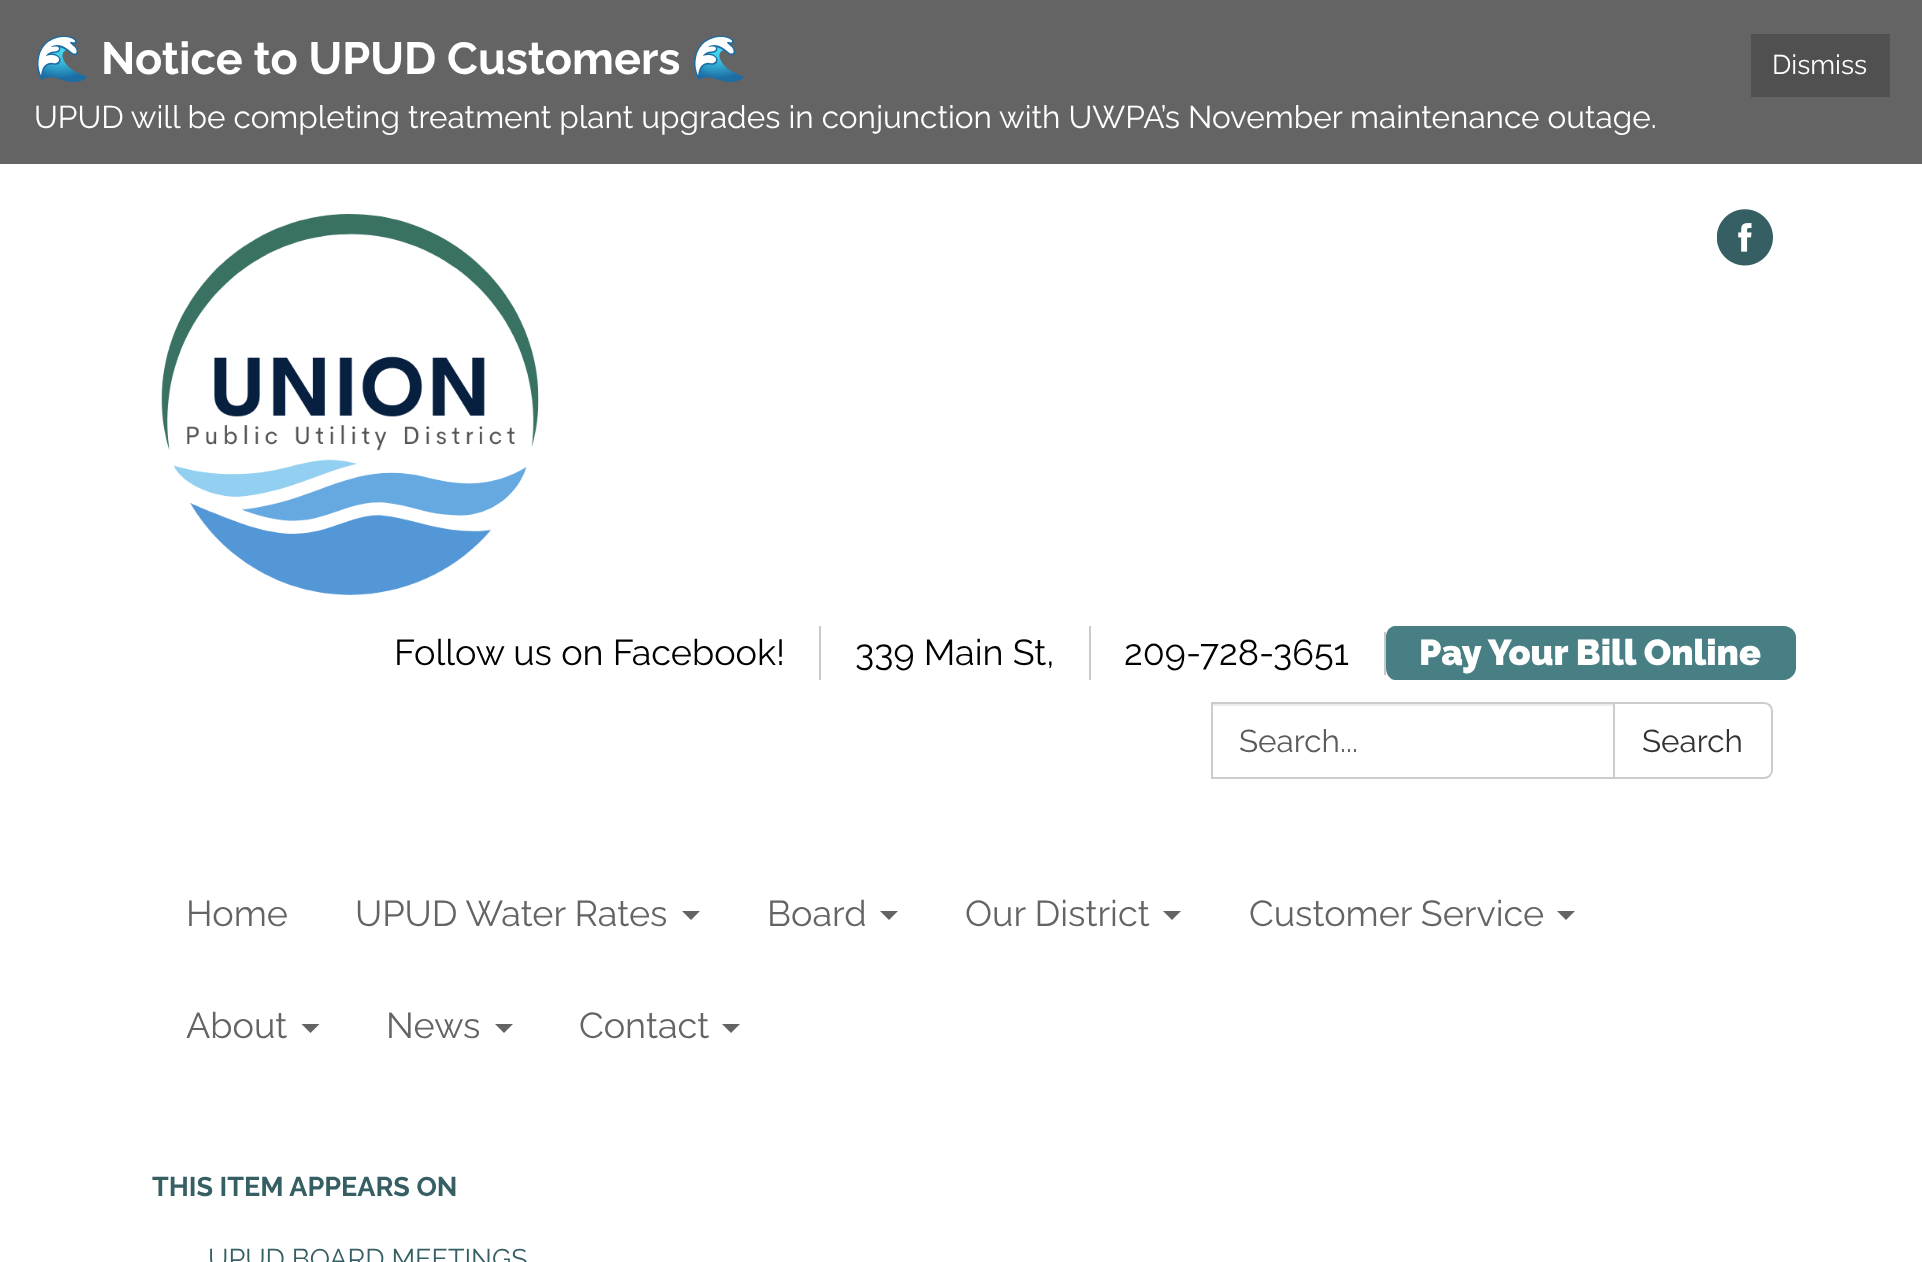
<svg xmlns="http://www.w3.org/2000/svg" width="1922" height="1262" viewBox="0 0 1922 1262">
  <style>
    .t1 { font: bold 45px Noto Color Emoji; fill: #fff; }
    .t2 { font: bold 45px Raleway; fill: #fff; }
    .t3 { font: 27px Raleway; fill: #fff; }
    .t4 { font: 31.5px Raleway; fill: #fff; }
    .t5 { font: 36px Raleway; fill: #000; }
    .t6 { font: 900 36px Raleway; fill: #fff; }
    .t7 { font: 31.5px Raleway; fill: #5b5b5b; }
    .t8 { font: 31.5px Raleway; fill: #333; }
    .t9 { font: 36px Raleway; fill: #646464; }
    .t10 { font: bold 27px Raleway; fill: #365f63; }
    .t11 { font: 27px Raleway; fill: #365f63; }
  </style>
  <rect width="100%" height="100%" fill="#646464"/>
  <text x="34" y="74" class="t1">🌊</text>
  <text x="101" y="74" class="t2">Notice to UPUD Customers</text>
  <text x="691" y="74" class="t1">🌊</text>
  <rect x="1751" y="34" width="139" height="63" fill="#505050"/>
  <text x="1772" y="74" class="t3">Dismiss</text>
  <text x="34" y="128" class="t4">UPUD will be completing treatment plant upgrades in conjunction with UWPA’s November maintenance outage.</text>
  <rect x="0" y="164" width="1922" height="693" fill="#fff"/>
  <image x="161" y="214" width="378" height="382" href="images/1.png"/>
  <image x="1717" y="209" width="56" height="57" href="images/2.png"/>
  <text x="394" y="665" class="t5">Follow us on Facebook!</text>
  <rect x="819" y="626" width="2" height="54" fill="#c8c9cb"/>
  <text x="855" y="665" class="t5">339 Main St,</text>
  <rect x="1089" y="626" width="2" height="54" fill="#c8c9cb"/>
  <text x="1124" y="665" class="t5">209-728-3651</text>
  <path d="M1395 626H1784C1790 626 1796 631 1796 637V668C1796 674 1790 680 1784 680H1395C1390 680 1386 674 1386 668V637C1386 631 1390 626 1395 626Z" fill="#487f84"/>
  <rect x="1384" y="632" width="2" height="43" fill="#c8c9cb"/>
  <text x="1419" y="665" class="t6">Pay Your Bill Online</text>
  <rect x="1213" y="704" width="400" height="2" fill="#ececec"/>
  <rect x="1212" y="703" width="403" height="75" fill="none" stroke="#ccc" stroke-width="2"/>
  <text x="1239" y="752" class="t7">Search...</text>
  <path d="M1614 703H1764C1768.5 703 1772 706.5 1772 711V770C1772 774.5 1768.5 778 1764 778H1614Z" fill="#fff" stroke="#ccc" stroke-width="2"/>
  <text x="1642" y="752" class="t8">Search</text>
  <rect x="0" y="857" width="1922" height="405" fill="#fff"/>
  <text x="186" y="926" class="t9">Home</text>
  <text x="355" y="926" class="t9">UPUD Water Rates</text>
  <path d="M682 911H700L691 920Z" fill="#646464"/>
  <text x="767" y="926" class="t9">Board</text>
  <path d="M880 911H898L889 920Z" fill="#646464"/>
  <text x="965" y="926" class="t9">Our District</text>
  <path d="M1163 911H1181L1172 920Z" fill="#646464"/>
  <text x="1249" y="926" class="t9">Customer Service</text>
  <path d="M1557 911H1575L1566 920Z" fill="#646464"/>
  <text x="186" y="1038" class="t9">About</text>
  <path d="M301.5 1024H319.5L310.5 1033Z" fill="#646464"/>
  <text x="386" y="1038" class="t9">News</text>
  <path d="M495 1024H513L504 1033Z" fill="#646464"/>
  <text x="579" y="1038" class="t9">Contact</text>
  <path d="M722 1024H740L731 1033Z" fill="#646464"/>
  <text x="152" y="1196" class="t10">THIS ITEM APPEARS ON</text>
  <text x="208" y="1268" class="t11">UPUD BOARD MEETINGS</text>
</svg>
